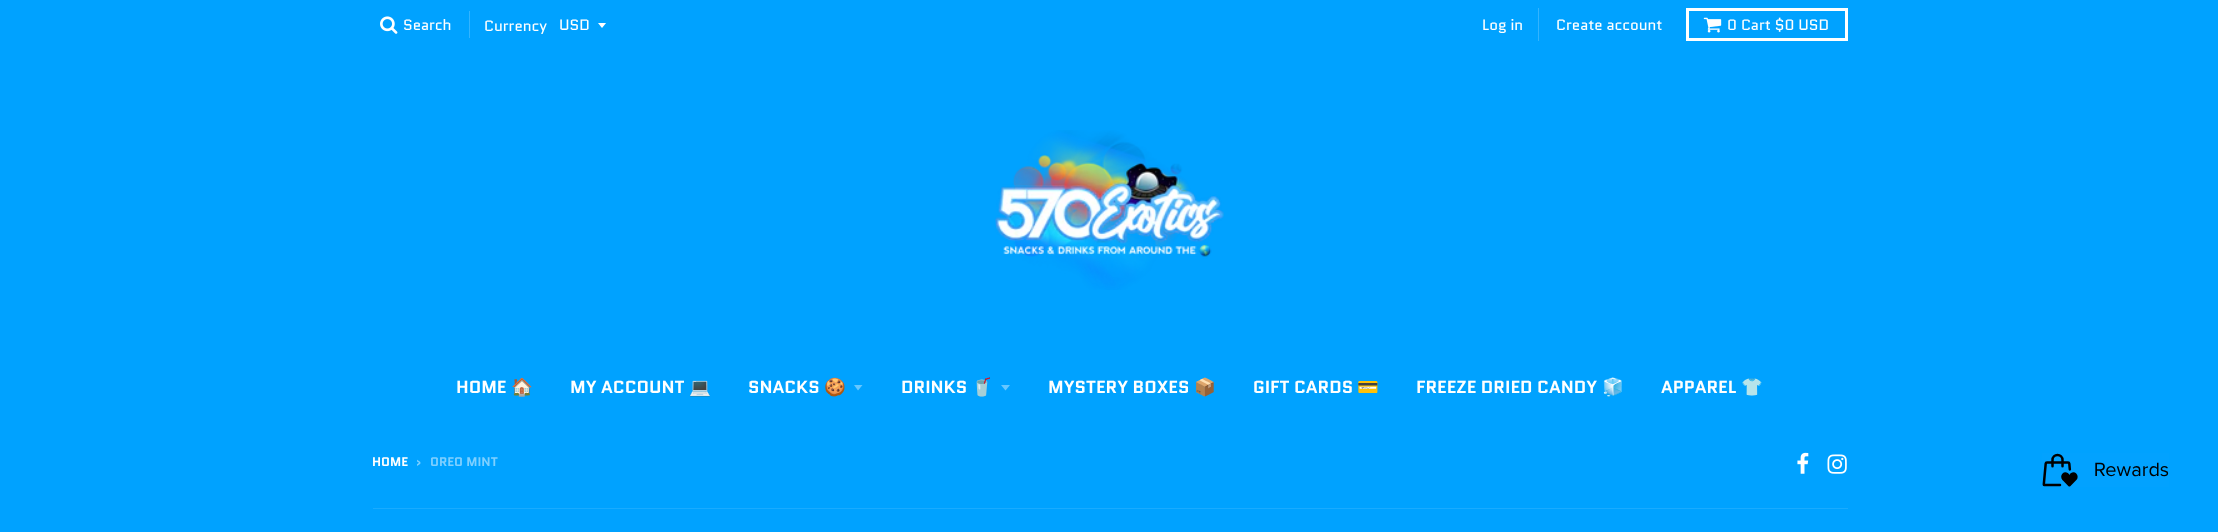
<svg xmlns="http://www.w3.org/2000/svg" width="2218" height="532" viewBox="0 0 2218 532">
  <style>
    .t1 { font: 15px Quantico; fill: #fff; }
    .t2 { font: bold 17.5px Quantico; fill: #fff; }
    .t3 { font: bold 17.5px Noto Color Emoji; fill: #fff; }
    .t4 { font: bold 12.5px Quantico; fill: #fff; }
    .t5 { font: bold 12.5px Quantico; fill: #7fd0ff; }
  </style>
  <defs>
    <clipPath id="clip1"><rect x="598" y="23" width="10" height="6"/></clipPath>
  </defs>
  <rect width="100%" height="100%" fill="#00a2ff"/>
  <image x="380" y="16" width="18" height="18" href="images/1.png"/>
  <text x="403" y="30" class="t1">Search</text>
  <rect x="469" y="11" width="1" height="27" fill="#33b4ff"/>
  <text x="484" y="31" class="t1">Currency</text>
  <g clip-path="url(#clip1)">
    <path d="M597.5 22.5L602 28L606.5 22.5Z" fill="#fff"/>
  </g>
  <text x="559" y="30" class="t1">USD</text>
  <rect x="1538" y="8" width="1" height="33" fill="#33b4ff"/>
  <text x="1482" y="30" class="t1">Log in</text>
  <text x="1556" y="30" class="t1">Create account</text>
  <rect x="1687.5" y="9.5" width="159" height="30" fill="none" stroke="#fff" stroke-width="3"/>
  <image x="1703" y="17" width="19" height="16" href="images/2.png"/>
  <text x="1727" y="30" class="t1">0 Cart $0 USD</text>
  <image x="995" y="130" width="229" height="160" href="images/3.png"/>
  <text x="456" y="393" class="t2">HOME</text>
  <text x="511" y="393" class="t3">🏠</text>
  <text x="570" y="393" class="t2">MY ACCOUNT</text>
  <text x="689" y="393" class="t3">💻</text>
  <text x="748" y="393" class="t2">SNACKS</text>
  <text x="824" y="393" class="t3">🍪</text>
  <path d="M854 385L858 390.5L862.5 385Z" fill="#66c7ff"/>
  <text x="901" y="393" class="t2">DRINKS</text>
  <text x="971" y="393" class="t3">🥤</text>
  <path d="M1001 385L1005.5 390.5L1010 385Z" fill="#66c7ff"/>
  <text x="1048" y="393" class="t2">MYSTERY BOXES</text>
  <text x="1194" y="393" class="t3">📦</text>
  <text x="1253" y="393" class="t2">GIFT CARDS</text>
  <text x="1357" y="393" class="t3">💳</text>
  <text x="1416" y="393" class="t2">FREEZE DRIED CANDY</text>
  <text x="1602" y="393" class="t3">🧊</text>
  <text x="1661" y="393" class="t2">APPAREL</text>
  <text x="1741" y="393" class="t3">👕</text>
  <text x="372" y="466" class="t4">HOME</text>
  <text x="416" y="466" class="t5">›</text>
  <text x="430" y="466" class="t5">OREO MINT</text>
  <image x="1797" y="452" width="12" height="22" href="images/4.png"/>
  <image x="1827" y="454" width="20" height="20" href="images/5.png"/>
  <rect x="373" y="508" width="1475" height="1" fill="#19abff"/>
  <image x="2042" y="453" width="127" height="34" href="images/6.png"/>
</svg>
